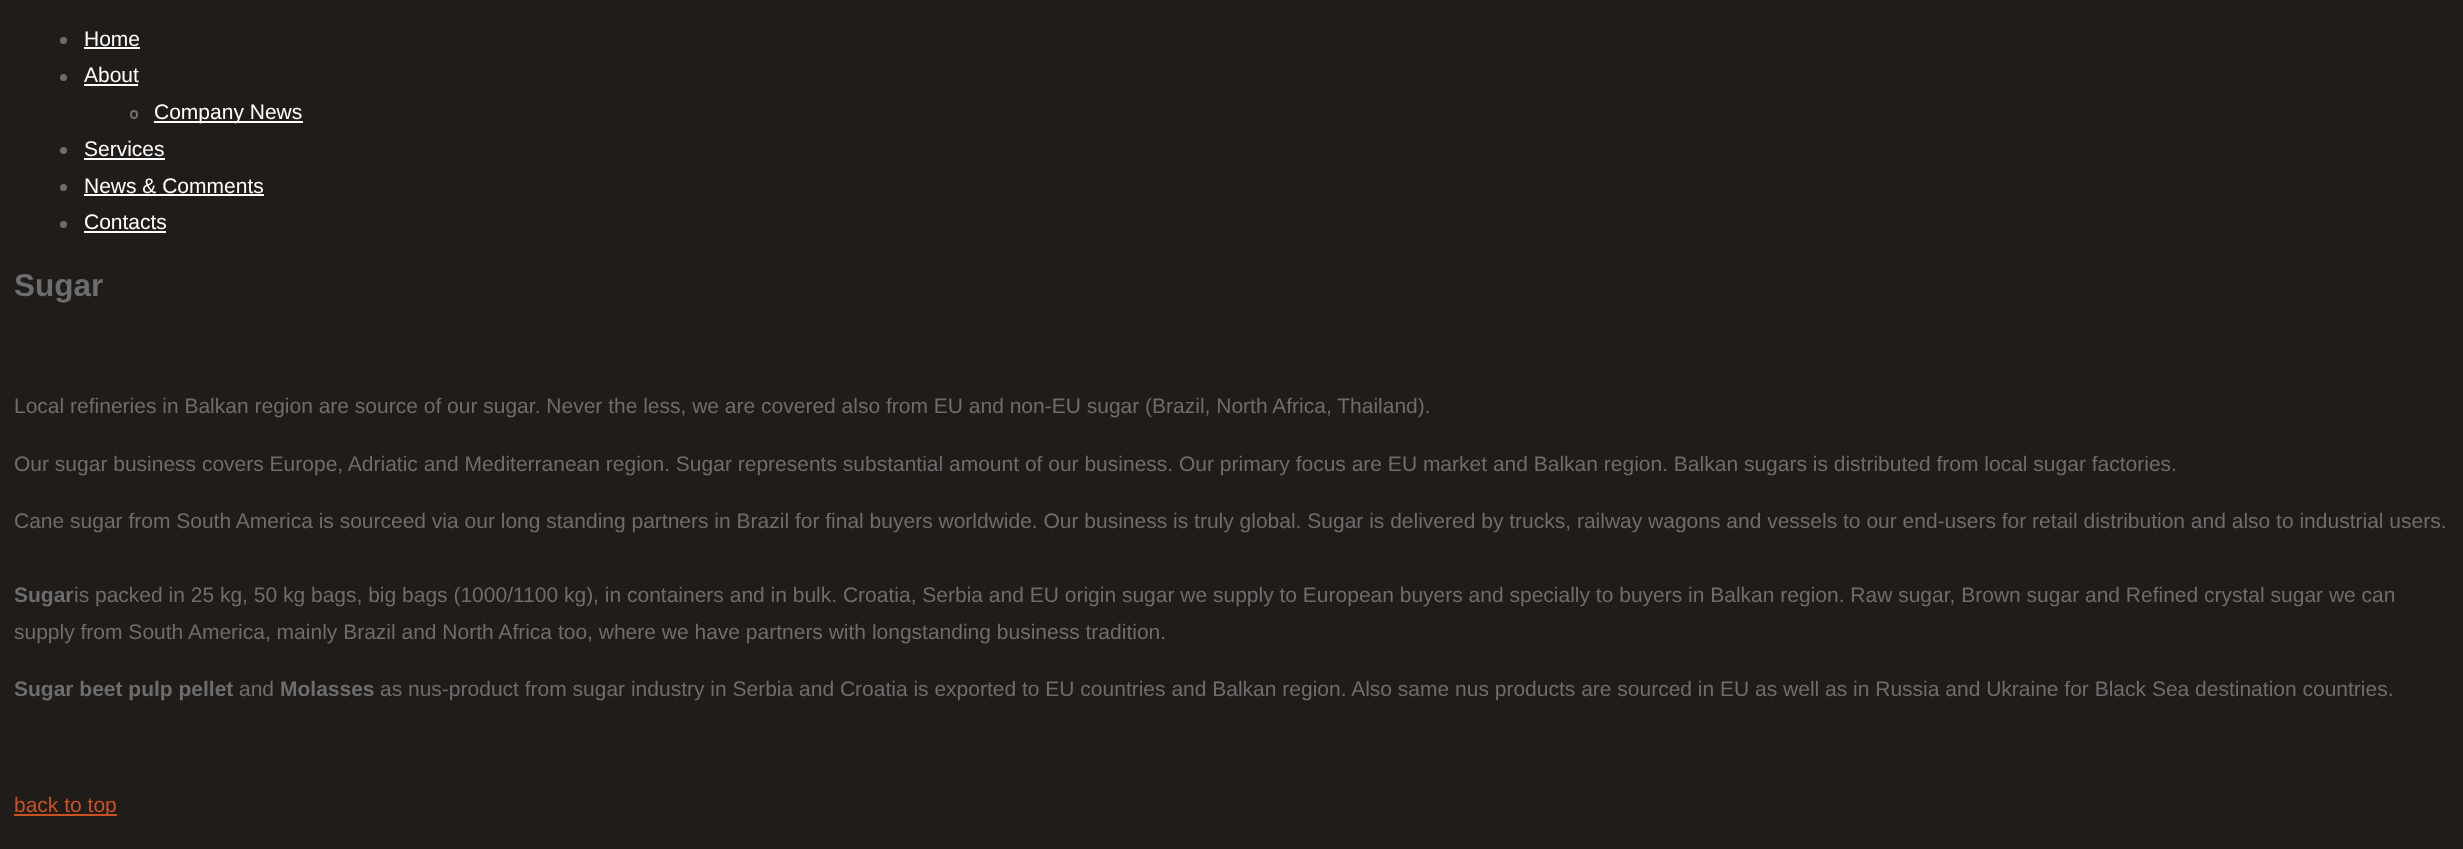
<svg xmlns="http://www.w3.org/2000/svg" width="2463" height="849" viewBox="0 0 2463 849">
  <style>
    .t1 { font: 21px Liberation Sans; fill: #fff; }
    .t2 { font: bold 31.5px Liberation Sans; fill: #6e6d6d; }
    .t3 { font: 21px Liberation Sans; fill: #6e6d6d; }
    .t4 { font: bold 21px Liberation Sans; fill: #6e6d6d; }
    .t5 { font: 21px Liberation Sans; fill: #ca5220; }
  </style>
  <rect width="100%" height="100%" fill="#201c19"/>
  <circle cx="63.5" cy="40.5" r="3.5" fill="#6e6d6d"/>
  <text x="84" y="46" class="t1">Home</text>
  <rect x="84" y="47" width="56" height="2" fill="#fff"/>
  <circle cx="63.5" cy="77.5" r="3.5" fill="#6e6d6d"/>
  <text x="84" y="82" class="t1">About</text>
  <rect x="84" y="84" width="54" height="2" fill="#fff"/>
  <rect x="131" y="111" width="6" height="7" rx="3" fill="none" stroke="#6e6d6d" stroke-width="2"/>
  <rect x="154" y="121" width="149" height="2" fill="#fff"/>
  <text x="154" y="119" class="t1">Company News</text>
  <circle cx="63.5" cy="150.5" r="3.5" fill="#6e6d6d"/>
  <text x="84" y="156" class="t1">Services</text>
  <rect x="84" y="158" width="81" height="2" fill="#fff"/>
  <circle cx="63.5" cy="187.5" r="3.5" fill="#6e6d6d"/>
  <text x="84" y="193" class="t1">News &amp; Comments</text>
  <rect x="84" y="194" width="180" height="2" fill="#fff"/>
  <circle cx="63.5" cy="224.5" r="3.5" fill="#6e6d6d"/>
  <text x="84" y="229" class="t1">Contacts</text>
  <rect x="84" y="231" width="82" height="2" fill="#fff"/>
  <text x="14" y="296" class="t2">Sugar</text>
  <text x="14" y="413" class="t3">Local refineries in Balkan region are source of our sugar. Never the less, we are covered also from EU and non-EU sugar (Brazil, North Africa, Thailand).</text>
  <text x="14" y="471" class="t3">Our sugar business covers Europe, Adriatic and Mediterranean region. Sugar represents substantial amount of our business. Our primary focus are EU market and Balkan region. Balkan sugars is distributed from local sugar factories.</text>
  <text x="14" y="528" class="t3">Cane sugar from South America is sourceed via our long standing partners in Brazil for final buyers worldwide. Our business is truly global. Sugar is delivered by trucks, railway wagons and vessels to our end-users for retail distribution and also to industrial users.</text>
  <text x="14" y="602" class="t4">Sugar</text>
  <text x="74" y="602" class="t3">is packed in 25 kg, 50 kg bags, big bags (1000/1100 kg), in containers and in bulk. Croatia, Serbia and EU origin sugar we supply to European buyers and specially to buyers in Balkan region. Raw sugar, Brown sugar and Refined crystal sugar we can</text>
  <text x="14" y="639" class="t3">supply from South America, mainly Brazil and North Africa too, where we have partners with longstanding business tradition.</text>
  <text x="14" y="696" class="t4">Sugar beet pulp pellet</text>
  <text x="239" y="696" class="t3">and</text>
  <text x="280" y="696" class="t4">Molasses</text>
  <text x="380" y="696" class="t3">as nus-product from sugar industry in Serbia and Croatia is exported to EU countries and Balkan region. Also same nus products are sourced in EU as well as in Russia and Ukraine for Black Sea destination countries.</text>
  <rect x="14" y="814" width="103" height="2" fill="#ca5220"/>
  <text x="14" y="812" class="t5">back to top</text>
</svg>
